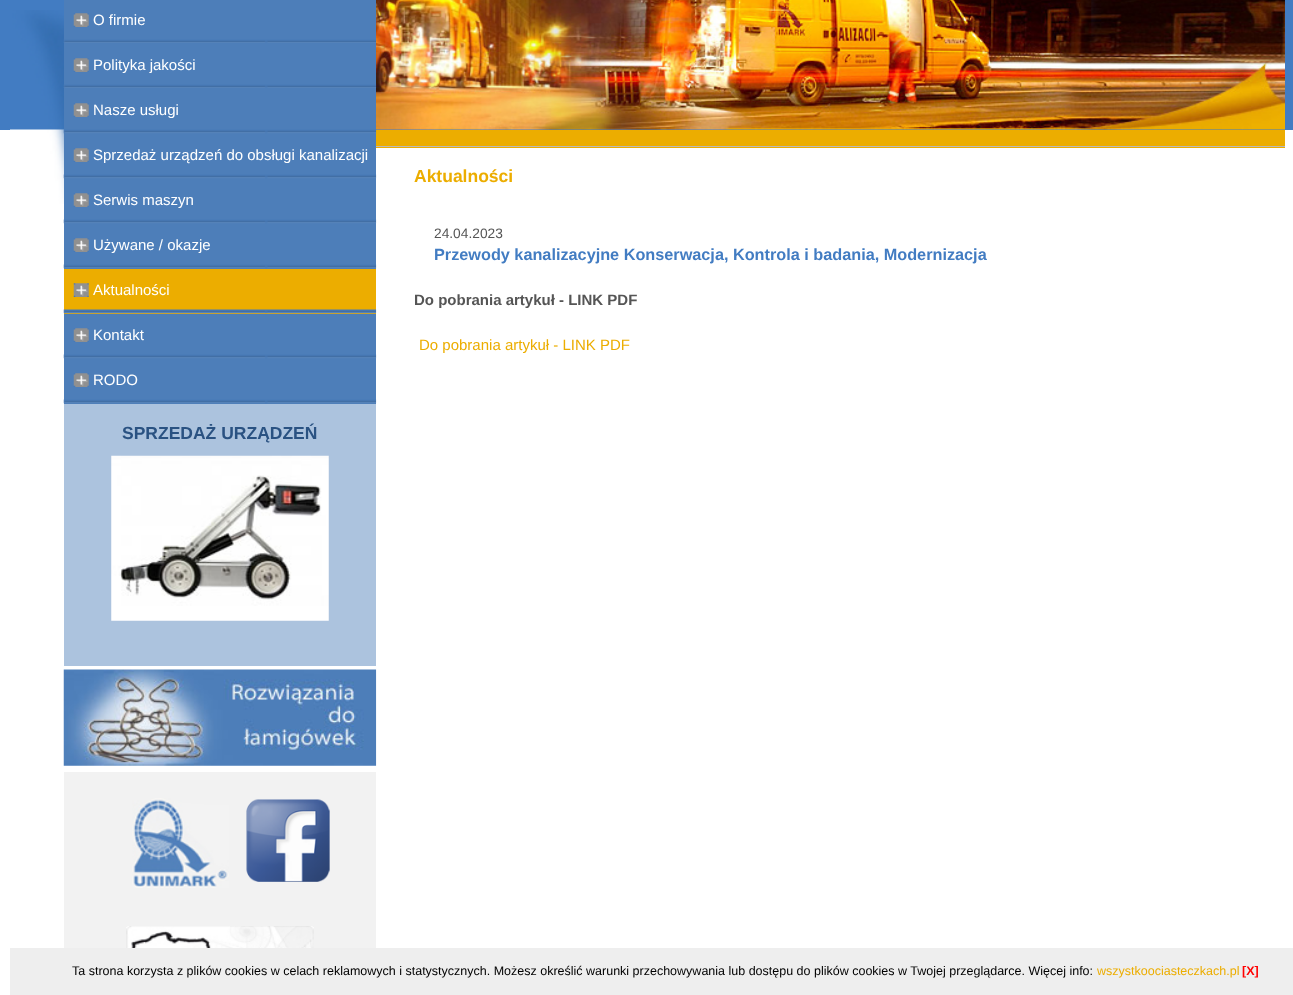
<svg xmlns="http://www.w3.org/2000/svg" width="1293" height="995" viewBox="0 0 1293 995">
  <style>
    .t1 { font: 15px Liberation Sans; fill: #fff; }
    .t2 { font: bold 17.5px Liberation Sans; fill: #2a5282; }
    .t3 { font: bold 17.5px Liberation Sans; fill: #ecad00; }
    .t4 { font: 13.75px Liberation Sans; fill: #555; }
    .t5 { font: bold 16.25px Liberation Sans; fill: #427cc2; }
    .t6 { font: bold 15px Liberation Sans; fill: #555; }
    .t7 { font: 15px Liberation Sans; fill: #ecad00; }
    .t8 { font: 12.5px Liberation Sans; fill: #000; }
    .t9 { font: 12.5px Liberation Sans; fill: #ecad00; }
    .t10 { font: bold 12.5px Liberation Sans; fill: #f00; }
  </style>
  <rect width="100%" height="100%" fill="#fff"/>
  <rect x="0" y="0" width="1293" height="130" fill="#427cc2"/>
  <image x="10" y="10" width="54" height="194" href="images/1.png"/>
  <rect x="64" y="0" width="312" height="269" fill="#4d7eb9"/>
  <image x="376" y="0" width="909" height="130" href="images/17.png"/>
  <image x="63" y="39" width="314" height="4" href="images/2.png"/>
  <image x="73" y="13" width="16" height="14" href="images/3.png"/>
  <text x="93" y="25" class="t1">O firmie</text>
  <image x="63" y="84" width="314" height="4" href="images/4.png"/>
  <image x="73" y="58" width="16" height="14" href="images/3.png"/>
  <text x="93" y="70" class="t1">Polityka jakości</text>
  <rect x="376" y="130" width="909" height="18" fill="#ecad00"/>
  <image x="63" y="129" width="314" height="5" href="images/5.png"/>
  <image x="73" y="103" width="16" height="14" href="images/3.png"/>
  <text x="93" y="115" class="t1">Nasze usługi</text>
  <image x="63" y="174" width="314" height="5" href="images/6.png"/>
  <image x="73" y="148" width="16" height="14" href="images/3.png"/>
  <text x="93" y="160" class="t1">Sprzedaż urządzeń do obsługi kanalizacji</text>
  <image x="63" y="219" width="314" height="5" href="images/7.png"/>
  <image x="73" y="193" width="16" height="14" href="images/3.png"/>
  <text x="93" y="205" class="t1">Serwis maszyn</text>
  <image x="63" y="264" width="314" height="5" href="images/7.png"/>
  <image x="73" y="238" width="16" height="14" href="images/3.png"/>
  <text x="93" y="250" class="t1">Używane / okazje</text>
  <rect x="64" y="269" width="312" height="45" fill="#ecad00"/>
  <image x="63" y="309" width="314" height="5" href="images/8.png"/>
  <image x="73" y="283" width="16" height="14" href="images/9.png"/>
  <text x="93" y="295" class="t1">Aktualności</text>
  <rect x="64" y="314" width="312" height="90" fill="#4d7eb9"/>
  <image x="63" y="354" width="314" height="5" href="images/7.png"/>
  <image x="73" y="328" width="16" height="14" href="images/3.png"/>
  <text x="93" y="340" class="t1">Kontakt</text>
  <image x="63" y="399" width="314" height="5" href="images/10.png"/>
  <image x="73" y="373" width="16" height="14" href="images/11.png"/>
  <text x="93" y="385" class="t1">RODO</text>
  <rect x="64" y="404" width="312" height="262" fill="#acc3de"/>
  <text x="122" y="439" class="t2">SPRZEDAŻ URZĄDZEŃ</text>
  <image x="111" y="455" width="218" height="166" href="images/12.png"/>
  <image x="63" y="669" width="314" height="97" href="images/13.png"/>
  <rect x="64" y="772" width="312" height="176" fill="#f2f2f2"/>
  <image x="132" y="798" width="97" height="90" href="images/14.png"/>
  <image x="246" y="799" width="84" height="83" href="images/15.png"/>
  <image x="126" y="926" width="188" height="22" href="images/16.png"/>
  <rect x="376" y="146" width="909" height="1" fill="#bbbaba"/>
  <text x="414" y="182" class="t3">Aktualności</text>
  <text x="434" y="238" class="t4">24.04.2023</text>
  <text x="434" y="260" class="t5">Przewody kanalizacyjne Konserwacja, Kontrola i badania, Modernizacja</text>
  <text x="414" y="305" class="t6">Do pobrania artykuł - LINK PDF</text>
  <text x="419" y="350" class="t7">Do pobrania artykuł - LINK PDF</text>
  <rect x="10" y="948" width="1283" height="47" fill="#eee"/>
  <text x="72" y="975" class="t8">Ta strona korzysta z plików cookies w celach reklamowych i statystycznych. Możesz określić warunki przechowywania lub dostępu do plików cookies w Twojej przeglądarce. Więcej info:</text>
  <text x="1097" y="975" class="t9">wszystkoociasteczkach.pl</text>
  <text x="1242" y="975" class="t10">[X]</text>
</svg>
